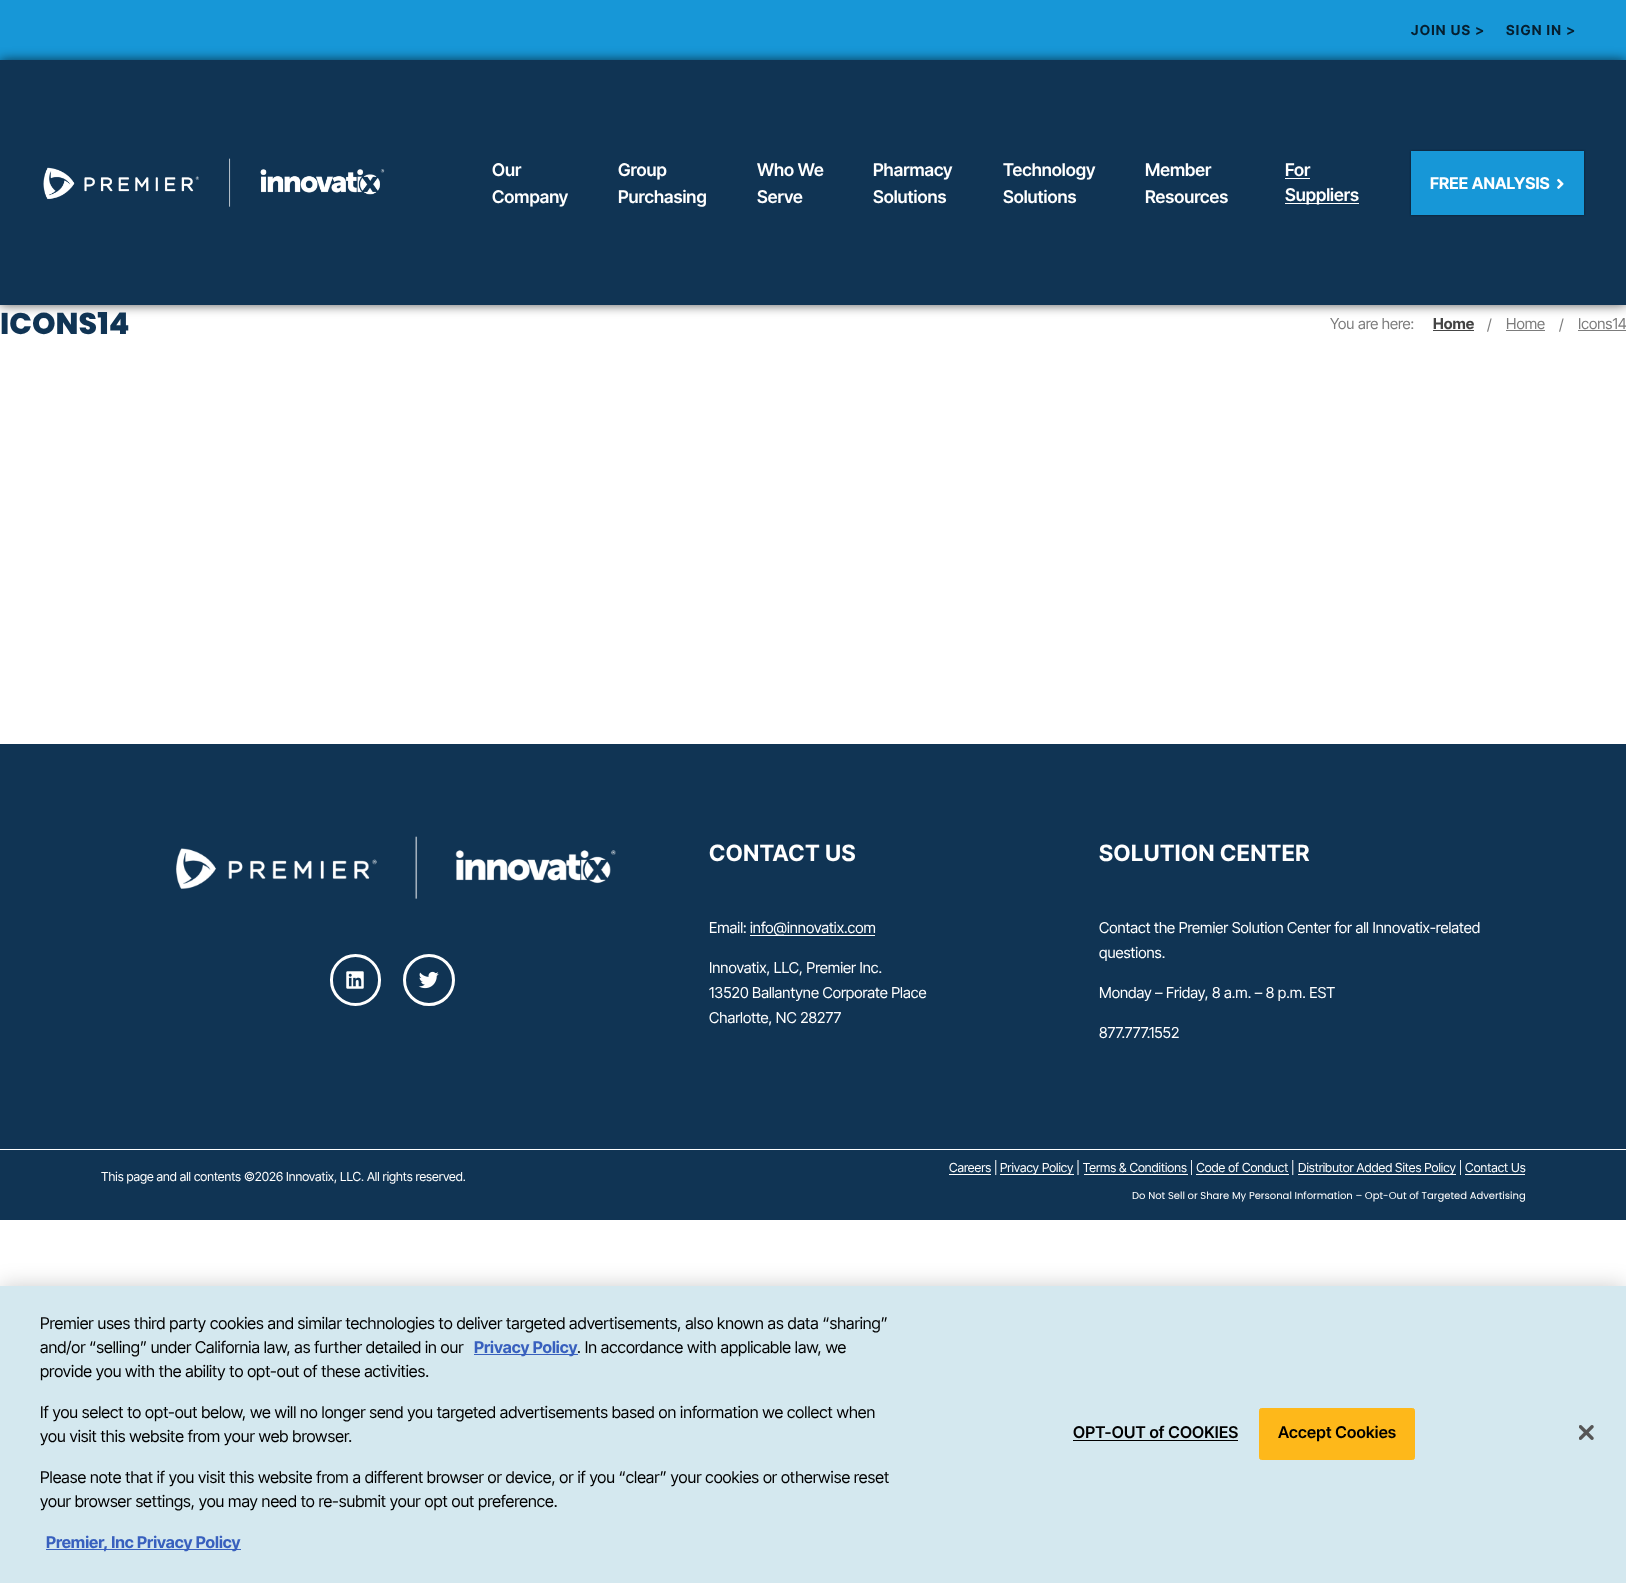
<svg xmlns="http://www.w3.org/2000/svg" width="1626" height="1583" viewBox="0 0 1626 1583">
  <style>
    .t1 { font: bold 13.75px Inter Tight; letter-spacing: 1.25px; fill: #061f2f; }
    .t2 { font: 600 17.5px Inter Tight; fill: #fff; }
    .t3 { font: bold 16.25px Inter Tight; letter-spacing: 0.1px; fill: #fff; }
    .t4 { font: 800 30px Poppins; fill: #103454; }
    .t5 { font: 15px Inter Tight; fill: #7c7c7c; }
    .t6 { font: bold 15px Inter Tight; fill: #444; }
    .t7 { font: bold 22.5px Inter Tight; letter-spacing: 0.6px; fill: #fff; }
    .t8 { font: 15px Inter Tight; fill: #fff; }
    .t9 { font: 12.5px Inter Tight; fill: #fff; }
    .t10 { font: 10px Poppins; fill: #fff; }
    .t11 { font: 16.25px Inter Tight; fill: #000; }
    .t12 { font: bold 16.25px Inter Tight; fill: #3860be; }
    .t13 { font: 600 16.25px Inter Tight; letter-spacing: 0.2px; fill: #000; }
  </style>
  <rect width="100%" height="100%" fill="#fff"/>
  <rect x="0" y="0" width="1626" height="60" fill="#1797d7"/>
  <text x="1411" y="35" class="t1">JOIN US &gt;</text>
  <text x="1506" y="35" class="t1">SIGN IN &gt;</text>
  <rect x="0" y="60" width="1626" height="245" fill="#000000a8" filter="blur(6px)"/>
  <rect x="0" y="60" width="1626" height="245" fill="#103454"/>
  <image x="43" y="158" width="342" height="49" href="images/1.png"/>
  <text x="492" y="176" class="t2">Our</text>
  <text x="492" y="203" class="t2">Company</text>
  <text x="618" y="176" class="t2">Group</text>
  <text x="618" y="203" class="t2">Purchasing</text>
  <text x="757" y="176" class="t2">Who We</text>
  <text x="757" y="203" class="t2">Serve</text>
  <text x="873" y="176" class="t2">Pharmacy</text>
  <text x="873" y="203" class="t2">Solutions</text>
  <text x="1003" y="176" class="t2">Technology</text>
  <text x="1003" y="203" class="t2">Solutions</text>
  <text x="1145" y="176" class="t2">Member</text>
  <text x="1145" y="203" class="t2">Resources</text>
  <text x="1285" y="176" class="t2">For</text>
  <rect x="1285" y="178" width="25" height="1" fill="#fff"/>
  <rect x="1285" y="203" width="74" height="1" fill="#fff"/>
  <text x="1285" y="201" class="t2">Suppliers</text>
  <rect x="1411" y="151" width="173" height="64" fill="#00000080" filter="blur(1px)"/>
  <rect x="1411" y="151" width="173" height="64" fill="#1797d7"/>
  <text x="1430" y="189" class="t3">FREE ANALYSIS</text>
  <image x="1557" y="178" width="7" height="11" href="images/2.png"/>
  <text x="0" y="334" class="t4">ICONS14</text>
  <text x="1330" y="329" class="t5">You are here:</text>
  <text x="1433" y="329" class="t6">Home</text>
  <rect x="1433" y="330" width="41" height="1" fill="#444"/>
  <text x="1487" y="330" class="t5">/</text>
  <text x="1506" y="329" class="t5">Home</text>
  <rect x="1506" y="330" width="39" height="1" fill="#7c7c7c"/>
  <text x="1559" y="330" class="t5">/</text>
  <text x="1578" y="329" class="t5">Icons14</text>
  <rect x="1578" y="330" width="48" height="1" fill="#7c7c7c"/>
  <rect x="0" y="744" width="1626" height="405" fill="#103454"/>
  <image x="176" y="836" width="440" height="63" href="images/3.png"/>
  <rect x="331.5" y="955.5" width="48" height="49" rx="24" fill="none" stroke="#fff" stroke-width="3"/>
  <image x="346" y="971" width="18" height="18" href="images/4.png"/>
  <circle cx="429" cy="980" r="24.5" fill="none" stroke="#fff" stroke-width="3"/>
  <image x="418" y="971" width="21" height="18" href="images/5.png"/>
  <text x="709" y="861" class="t7">CONTACT US</text>
  <text x="709" y="933" class="t8">Email:</text>
  <rect x="750" y="935" width="125" height="1" fill="#fff"/>
  <text x="750" y="933" class="t8">info@innovatix.com</text>
  <text x="709" y="973" class="t8">Innovatix, LLC, Premier Inc.</text>
  <text x="709" y="998" class="t8">13520 Ballantyne Corporate Place</text>
  <text x="709" y="1023" class="t8">Charlotte, NC 28277</text>
  <text x="1099" y="861" class="t7">SOLUTION CENTER</text>
  <text x="1099" y="933" class="t8">Contact the Premier Solution Center for all Innovatix-related</text>
  <text x="1099" y="958" class="t8">questions.</text>
  <text x="1099" y="998" class="t8">Monday – Friday, 8 a.m. – 8 p.m. EST</text>
  <text x="1099" y="1038" class="t8">877.777.1552</text>
  <rect x="0" y="1150" width="1626" height="70" fill="#103454"/>
  <text x="101" y="1181" class="t9">This page and all contents ©2026 Innovatix, LLC. All rights reserved.</text>
  <rect x="949" y="1174" width="42" height="1" fill="#fff"/>
  <text x="949" y="1172" class="t9">Careers |</text>
  <rect x="1000" y="1174" width="74" height="1" fill="#fff"/>
  <text x="1000" y="1172" class="t9">Privacy Policy | Terms &amp; Conditions | Code of Conduct |</text>
  <rect x="1298" y="1174" width="158" height="1" fill="#fff"/>
  <text x="1298" y="1172" class="t9">Distributor Added Sites Policy | Contact Us</text>
  <rect x="1084" y="1174" width="104" height="1" fill="#fff"/>
  <rect x="1196" y="1174" width="93" height="1" fill="#fff"/>
  <rect x="1465" y="1174" width="60" height="1" fill="#fff"/>
  <text x="1132" y="1199" class="t10">Do Not Sell or Share My Personal Information – Opt-Out of Targeted Advertising</text>
  <rect x="0" y="1286" width="1626" height="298" fill="#00000033" filter="blur(11px)"/>
  <rect x="0" y="1286" width="1626" height="297" fill="#d4e8ef"/>
  <text x="40" y="1329" class="t11">Premier uses third party cookies and similar technologies to deliver targeted advertisements, also known as data “sharing”</text>
  <text x="40" y="1353" class="t11">and/or “selling” under California law, as further detailed in our</text>
  <rect x="474" y="1354" width="104" height="1" fill="#3860be"/>
  <text x="474" y="1353" class="t12">Privacy Policy</text>
  <text x="577" y="1353" class="t11">. In accordance with applicable law, we</text>
  <text x="40" y="1377" class="t11">provide you with the ability to opt-out of these activities.</text>
  <text x="40" y="1418" class="t11">If you select to opt-out below, we will no longer send you targeted advertisements based on information we collect when</text>
  <text x="40" y="1442" class="t11">you visit this website from your web browser.</text>
  <text x="40" y="1483" class="t11">Please note that if you visit this website from a different browser or device, or if you “clear” your cookies or otherwise reset</text>
  <text x="40" y="1507" class="t11">your browser settings, you may need to re-submit your opt out preference.</text>
  <rect x="46" y="1549" width="195" height="1" fill="#3860be"/>
  <text x="46" y="1548" class="t12">Premier, Inc Privacy Policy</text>
  <text x="1073" y="1438" class="t13">OPT-OUT of COOKIES</text>
  <rect x="1073" y="1440" width="165" height="1" fill="#000"/>
  <rect x="1259.5" y="1408.5" width="155" height="51" rx="2" fill="#feb81a" stroke="#feb81a"/>
  <text x="1278" y="1438" class="t13">Accept Cookies</text>
  <image x="1579" y="1425" width="15" height="15" href="images/6.png"/>
</svg>
